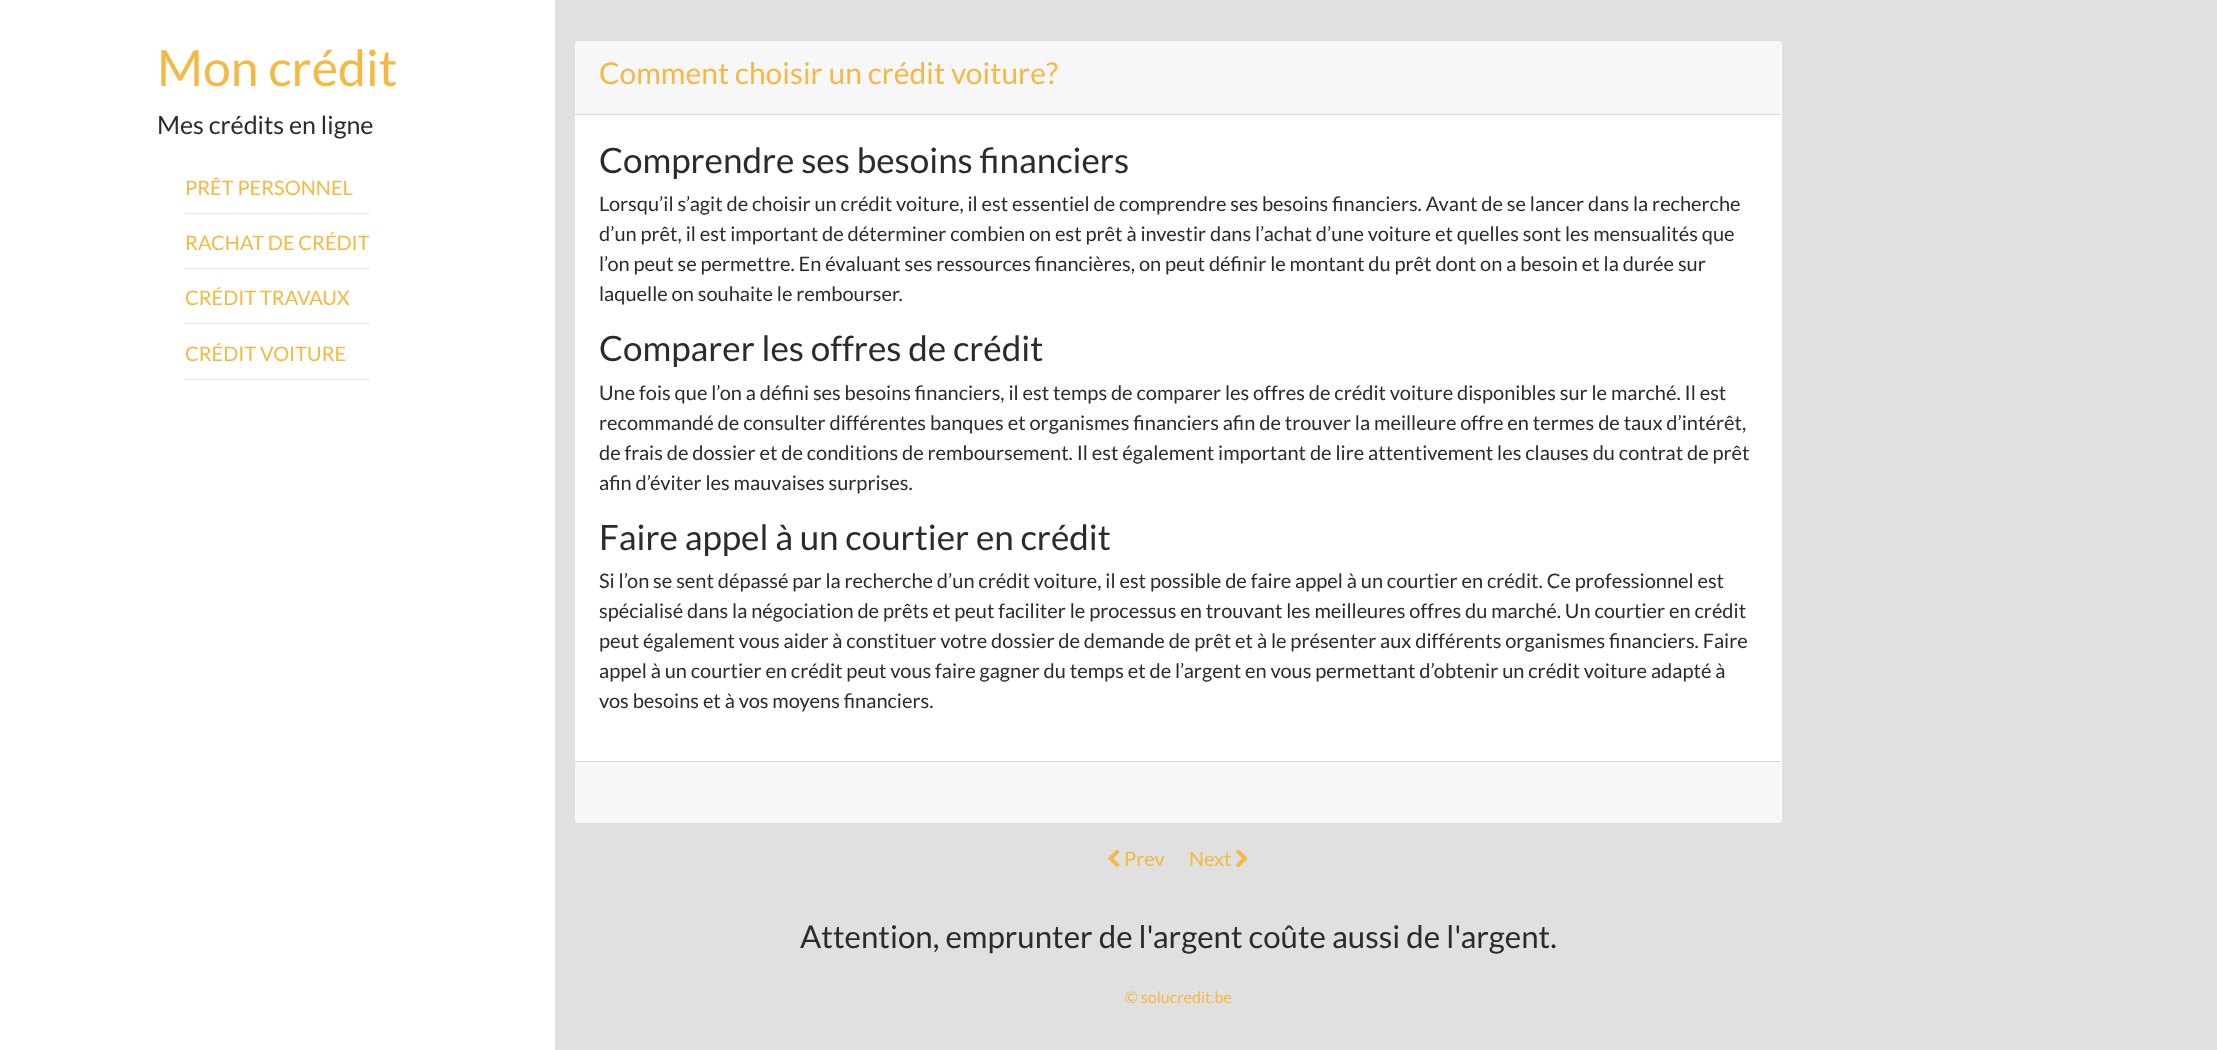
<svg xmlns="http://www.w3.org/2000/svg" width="2217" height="1050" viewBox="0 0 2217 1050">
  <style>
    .t1 { font: 50px Lato; fill: #f4b942; }
    .t2 { font: 25px Lato; fill: #292b2c; }
    .t3 { font: 20px Lato; fill: #f4b942; }
    .t4 { font: 30px Lato; fill: #f4b942; }
    .t5 { font: 35px Lato; fill: #292b2c; }
    .t6 { font: 20px Lato; fill: #292b2c; }
    .t7 { font: 31.25px Lato; fill: #292b2c; }
    .t8 { font: 16px Lato; fill: #f4b942; }
  </style>
  <rect width="100%" height="100%" fill="#e0e0e0"/>
  <rect x="0" y="0" width="555" height="1050" fill="#fff"/>
  <text x="157" y="86" class="t1">Mon crédit</text>
  <text x="157" y="134" class="t2">Mes crédits en ligne</text>
  <rect x="185" y="213" width="185" height="1" fill="#e6e6e6"/>
  <text x="185" y="195" class="t3">PRÊT PERSONNEL</text>
  <rect x="185" y="268" width="185" height="1" fill="#e6e6e6"/>
  <text x="185" y="250" class="t3">RACHAT DE CRÉDIT</text>
  <rect x="185" y="323" width="185" height="1" fill="#e6e6e6"/>
  <text x="185" y="305" class="t3">CRÉDIT TRAVAUX</text>
  <rect x="185" y="379" width="185" height="1" fill="#e6e6e6"/>
  <text x="185" y="361" class="t3">CRÉDIT VOITURE</text>
  <rect x="574" y="40" width="1209" height="784" rx="5" fill="#fff"/>
  <rect x="574.5" y="40.5" width="1208" height="783" rx="4.5" fill="none" stroke="#0000001f"/>
  <path d="M579 41H1777C1779 41 1781 43 1781 45V115H575V45C575 43 577 41 579 41Z" fill="#f7f7f9"/>
  <rect x="575" y="114" width="1206" height="1" fill="#d8d8da"/>
  <text x="599" y="84" class="t4">Comment choisir un crédit voiture?</text>
  <text x="599" y="173" class="t5">Comprendre ses besoins financiers</text>
  <text x="599" y="211" class="t6">Lorsqu’il s’agit de choisir un crédit voiture, il est essentiel de comprendre ses besoins financiers. Avant de se lancer dans la recherche</text>
  <text x="599" y="241" class="t6">d’un prêt, il est important de déterminer combien on est prêt à investir dans l’achat d’une voiture et quelles sont les mensualités que</text>
  <text x="599" y="271" class="t6">l’on peut se permettre. En évaluant ses ressources financières, on peut définir le montant du prêt dont on a besoin et la durée sur</text>
  <text x="599" y="301" class="t6">laquelle on souhaite le rembourser.</text>
  <text x="599" y="361" class="t5">Comparer les offres de crédit</text>
  <text x="599" y="400" class="t6">Une fois que l’on a défini ses besoins financiers, il est temps de comparer les offres de crédit voiture disponibles sur le marché. Il est</text>
  <text x="599" y="430" class="t6">recommandé de consulter différentes banques et organismes financiers afin de trouver la meilleure offre en termes de taux d’intérêt,</text>
  <text x="599" y="460" class="t6">de frais de dossier et de conditions de remboursement. Il est également important de lire attentivement les clauses du contrat de prêt</text>
  <text x="599" y="490" class="t6">afin d’éviter les mauvaises surprises.</text>
  <text x="599" y="550" class="t5">Faire appel à un courtier en crédit</text>
  <text x="599" y="588" class="t6">Si l’on se sent dépassé par la recherche d’un crédit voiture, il est possible de faire appel à un courtier en crédit. Ce professionnel est</text>
  <text x="599" y="618" class="t6">spécialisé dans la négociation de prêts et peut faciliter le processus en trouvant les meilleures offres du marché. Un courtier en crédit</text>
  <text x="599" y="648" class="t6">peut également vous aider à constituer votre dossier de demande de prêt et à le présenter aux différents organismes financiers. Faire</text>
  <text x="599" y="678" class="t6">appel à un courtier en crédit peut vous faire gagner du temps et de l’argent en vous permettant d’obtenir un crédit voiture adapté à</text>
  <text x="599" y="708" class="t6">vos besoins et à vos moyens financiers.</text>
  <path d="M575 761H1781V819C1781 821 1779 823 1777 823H579C577 823 575 821 575 819Z" fill="#f7f7f9"/>
  <rect x="575" y="761" width="1206" height="1" fill="#d8d8da"/>
  <image x="1108" y="849" width="12" height="19" href="images/1.png"/>
  <text x="1124" y="866" class="t3">Prev</text>
  <text x="1189" y="866" class="t3">Next</text>
  <image x="1236" y="849" width="12" height="19" href="images/2.png"/>
  <text x="800" y="948" class="t7">Attention, emprunter de l'argent coûte aussi de l'argent.</text>
  <text x="1125" y="1003" class="t8">© solucredit.be</text>
</svg>
